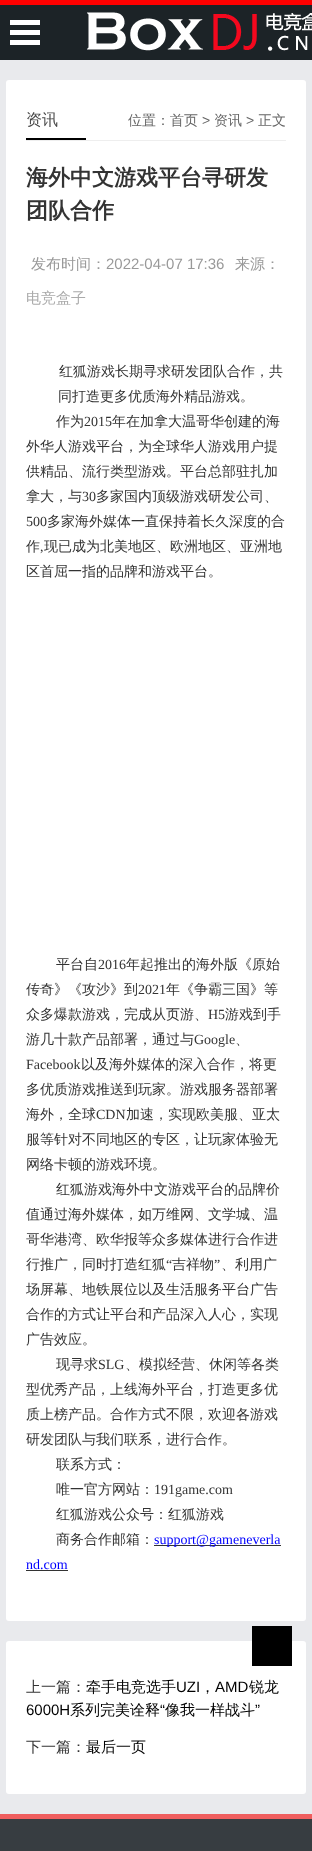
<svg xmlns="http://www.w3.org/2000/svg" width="312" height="1851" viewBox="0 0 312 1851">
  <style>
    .t1 { font: 500 16px WenQuanYi Zen Hei; fill: #484848; }
    .t2 { font: 500 14px WenQuanYi Zen Hei; fill: #666; }
    .t3 { font: 14px Liberation Sans; fill: #666; }
    .t4 { font: bold 22px WenQuanYi Zen Hei; fill: #333; }
    .t5 { font: 500 15px WenQuanYi Zen Hei; fill: #999; }
    .t6 { font: 15px Liberation Sans; fill: #999; }
    .t7 { font: 500 15px WenQuanYi Zen Hei; fill: #aaa; }
    .t8 { font: 500 14px WenQuanYi Zen Hei; fill: #333; }
    .t9 { font: 14px Liberation Serif; fill: #333; }
    .t10 { font: 14px Liberation Serif; fill: #00f; }
    .t11 { font: 500 15px WenQuanYi Zen Hei; fill: #333; }
    .t12 { font: 500 15px WenQuanYi Zen Hei; fill: #000; }
    .t13 { font: 15px Liberation Sans; fill: #000; }
  </style>
  <rect width="100%" height="100%" fill="#e9eaed"/>
  <rect x="0" y="5" width="312" height="55" fill="#1c2327"/>
  <rect x="0" y="0" width="312" height="5" fill="#f00"/>
  <rect x="10" y="30" width="30" height="5" fill="#fff"/>
  <rect x="10" y="20" width="30" height="5" fill="#fff"/>
  <rect x="10" y="40" width="30" height="5" fill="#fff"/>
  <image x="87" y="12" width="225" height="39" href="images/1.png"/>
  <rect x="6" y="80" width="300" height="1541" rx="3" fill="#fff"/>
  <rect x="26" y="140" width="260" height="1" fill="#eee"/>
  <text x="26" y="125" class="t1">资讯</text>
  <text x="128" y="125" class="t2">位置：首页</text>
  <text x="202" y="125" class="t3">&gt;</text>
  <text x="214" y="125" class="t2">资讯</text>
  <text x="246" y="125" class="t3">&gt;</text>
  <text x="258" y="125" class="t2">正文</text>
  <rect x="26" y="138" width="60" height="2" fill="#000"/>
  <text x="26" y="185" class="t4">海外中文游戏平台寻研发</text>
  <text x="26" y="218" class="t4">团队合作</text>
  <text x="31" y="269" class="t5">发布时间：</text>
  <text x="106" y="269" class="t6">2022-04-07 17:36</text>
  <text x="235" y="269" class="t5">来源：</text>
  <text x="26" y="303" class="t7">电竞盒子</text>
  <text x="59" y="376" class="t8">红狐游戏长期寻求研发团队合作，共</text>
  <text x="58" y="401" class="t8">同打造更多优质海外精品游戏。</text>
  <text x="56" y="426" class="t8">作为</text>
  <text x="84" y="426" class="t9">2015</text>
  <text x="112" y="426" class="t8">年在加拿大温哥华创建的海</text>
  <text x="26" y="451" class="t8">外华人游戏平台，为全球华人游戏用户提</text>
  <text x="26" y="476" class="t8">供精品、流行类型游戏。平台总部驻扎加</text>
  <text x="26" y="501" class="t8">拿大，与</text>
  <text x="82" y="501" class="t9">30</text>
  <text x="96" y="501" class="t8">多家国内顶级游戏研发公司、</text>
  <text x="26" y="526" class="t9">500</text>
  <text x="47" y="526" class="t8">多家海外媒体一直保持着长久深度的合</text>
  <text x="26" y="551" class="t8">作</text>
  <text x="40" y="551" class="t9">,</text>
  <text x="44" y="551" class="t8">现已成为北美地区、欧洲地区、亚洲地</text>
  <text x="26" y="576" class="t8">区首屈一指的品牌和游戏平台。</text>
  <text x="56" y="969" class="t8">平台自</text>
  <text x="98" y="969" class="t9">2016</text>
  <text x="126" y="969" class="t8">年起推出的海外版《原始</text>
  <text x="26" y="994" class="t8">传奇》《攻沙》到</text>
  <text x="138" y="994" class="t9">2021</text>
  <text x="166" y="994" class="t8">年《争霸三国》等</text>
  <text x="26" y="1019" class="t8">众多爆款游戏，完成从页游、</text>
  <text x="208" y="1019" class="t9">H5</text>
  <text x="225" y="1019" class="t8">游戏到手</text>
  <text x="26" y="1044" class="t8">游几十款产品部署，通过与</text>
  <text x="194" y="1044" class="t9">Google</text>
  <text x="235" y="1044" class="t8">、</text>
  <text x="26" y="1069" class="t9">Facebook</text>
  <text x="81" y="1069" class="t8">以及海外媒体的深入合作，将更</text>
  <text x="26" y="1094" class="t8">多优质游戏推送到玩家。游戏服务器部署</text>
  <text x="26" y="1119" class="t8">海外，全球</text>
  <text x="96" y="1119" class="t9">CDN</text>
  <text x="126" y="1119" class="t8">加速，实现欧美服、亚太</text>
  <text x="26" y="1144" class="t8">服等针对不同地区的专区，让玩家体验无</text>
  <text x="26" y="1169" class="t8">网络卡顿的游戏环境。</text>
  <text x="56" y="1194" class="t8">红狐游戏海外中文游戏平台的品牌价</text>
  <text x="26" y="1219" class="t8">值通过海外媒体，如万维网、文学城、温</text>
  <text x="26" y="1244" class="t8">哥华港湾、欧华报等众多媒体进行合作进</text>
  <text x="26" y="1269" class="t8">行推广，同时打造红狐</text>
  <text x="166" y="1269" class="t9">“</text>
  <text x="172" y="1269" class="t8">吉祥物</text>
  <text x="214" y="1269" class="t9">”</text>
  <text x="221" y="1269" class="t8">、利用广</text>
  <text x="26" y="1294" class="t8">场屏幕、地铁展位以及生活服务平台广告</text>
  <text x="26" y="1319" class="t8">合作的方式让平台和产品深入人心，实现</text>
  <text x="26" y="1344" class="t8">广告效应。</text>
  <text x="56" y="1369" class="t8">现寻求</text>
  <text x="98" y="1369" class="t9">SLG</text>
  <text x="125" y="1369" class="t8">、模拟经营、休闲等各类</text>
  <text x="26" y="1394" class="t8">型优秀产品，上线海外平台，打造更多优</text>
  <text x="26" y="1419" class="t8">质上榜产品。合作方式不限，欢迎各游戏</text>
  <text x="26" y="1444" class="t8">研发团队与我们联系，进行合作。</text>
  <text x="56" y="1469" class="t8">联系方式：</text>
  <text x="56" y="1494" class="t8">唯一官方网站：</text>
  <text x="154" y="1494" class="t9">191game.com</text>
  <text x="56" y="1519" class="t8">红狐游戏公众号：红狐游戏</text>
  <text x="56" y="1544" class="t8">商务合作邮箱：</text>
  <rect x="154" y="1545" width="127" height="1" fill="#333"/>
  <text x="154" y="1544" class="t10">support@gameneverla</text>
  <text x="26" y="1569" class="t10">nd.com</text>
  <rect x="26" y="1570" width="42" height="1" fill="#333"/>
  <rect x="6" y="1641" width="300" height="153" rx="3" fill="#fff"/>
  <text x="26" y="1692" class="t11">上一篇：</text>
  <text x="86" y="1692" class="t12">牵手电竞选手</text>
  <text x="176" y="1692" class="t13">UZI</text>
  <text x="200" y="1692" class="t12">，</text>
  <text x="215" y="1692" class="t13">AMD</text>
  <text x="249" y="1692" class="t12">锐龙</text>
  <text x="26" y="1715" class="t13">6000H</text>
  <text x="70" y="1715" class="t12">系列完美诠释</text>
  <text x="160" y="1715" class="t13">“</text>
  <text x="165" y="1715" class="t12">像我一样战斗</text>
  <text x="255" y="1715" class="t13">”</text>
  <text x="26" y="1752" class="t11">下一篇：</text>
  <text x="86" y="1752" class="t12">最后一页</text>
  <rect x="0" y="1819" width="312" height="32" fill="#373d41"/>
  <rect x="0" y="1814" width="312" height="5" fill="#ef5e5e"/>
  <rect x="252" y="1626" width="40" height="40" fill="#000"/>
</svg>
